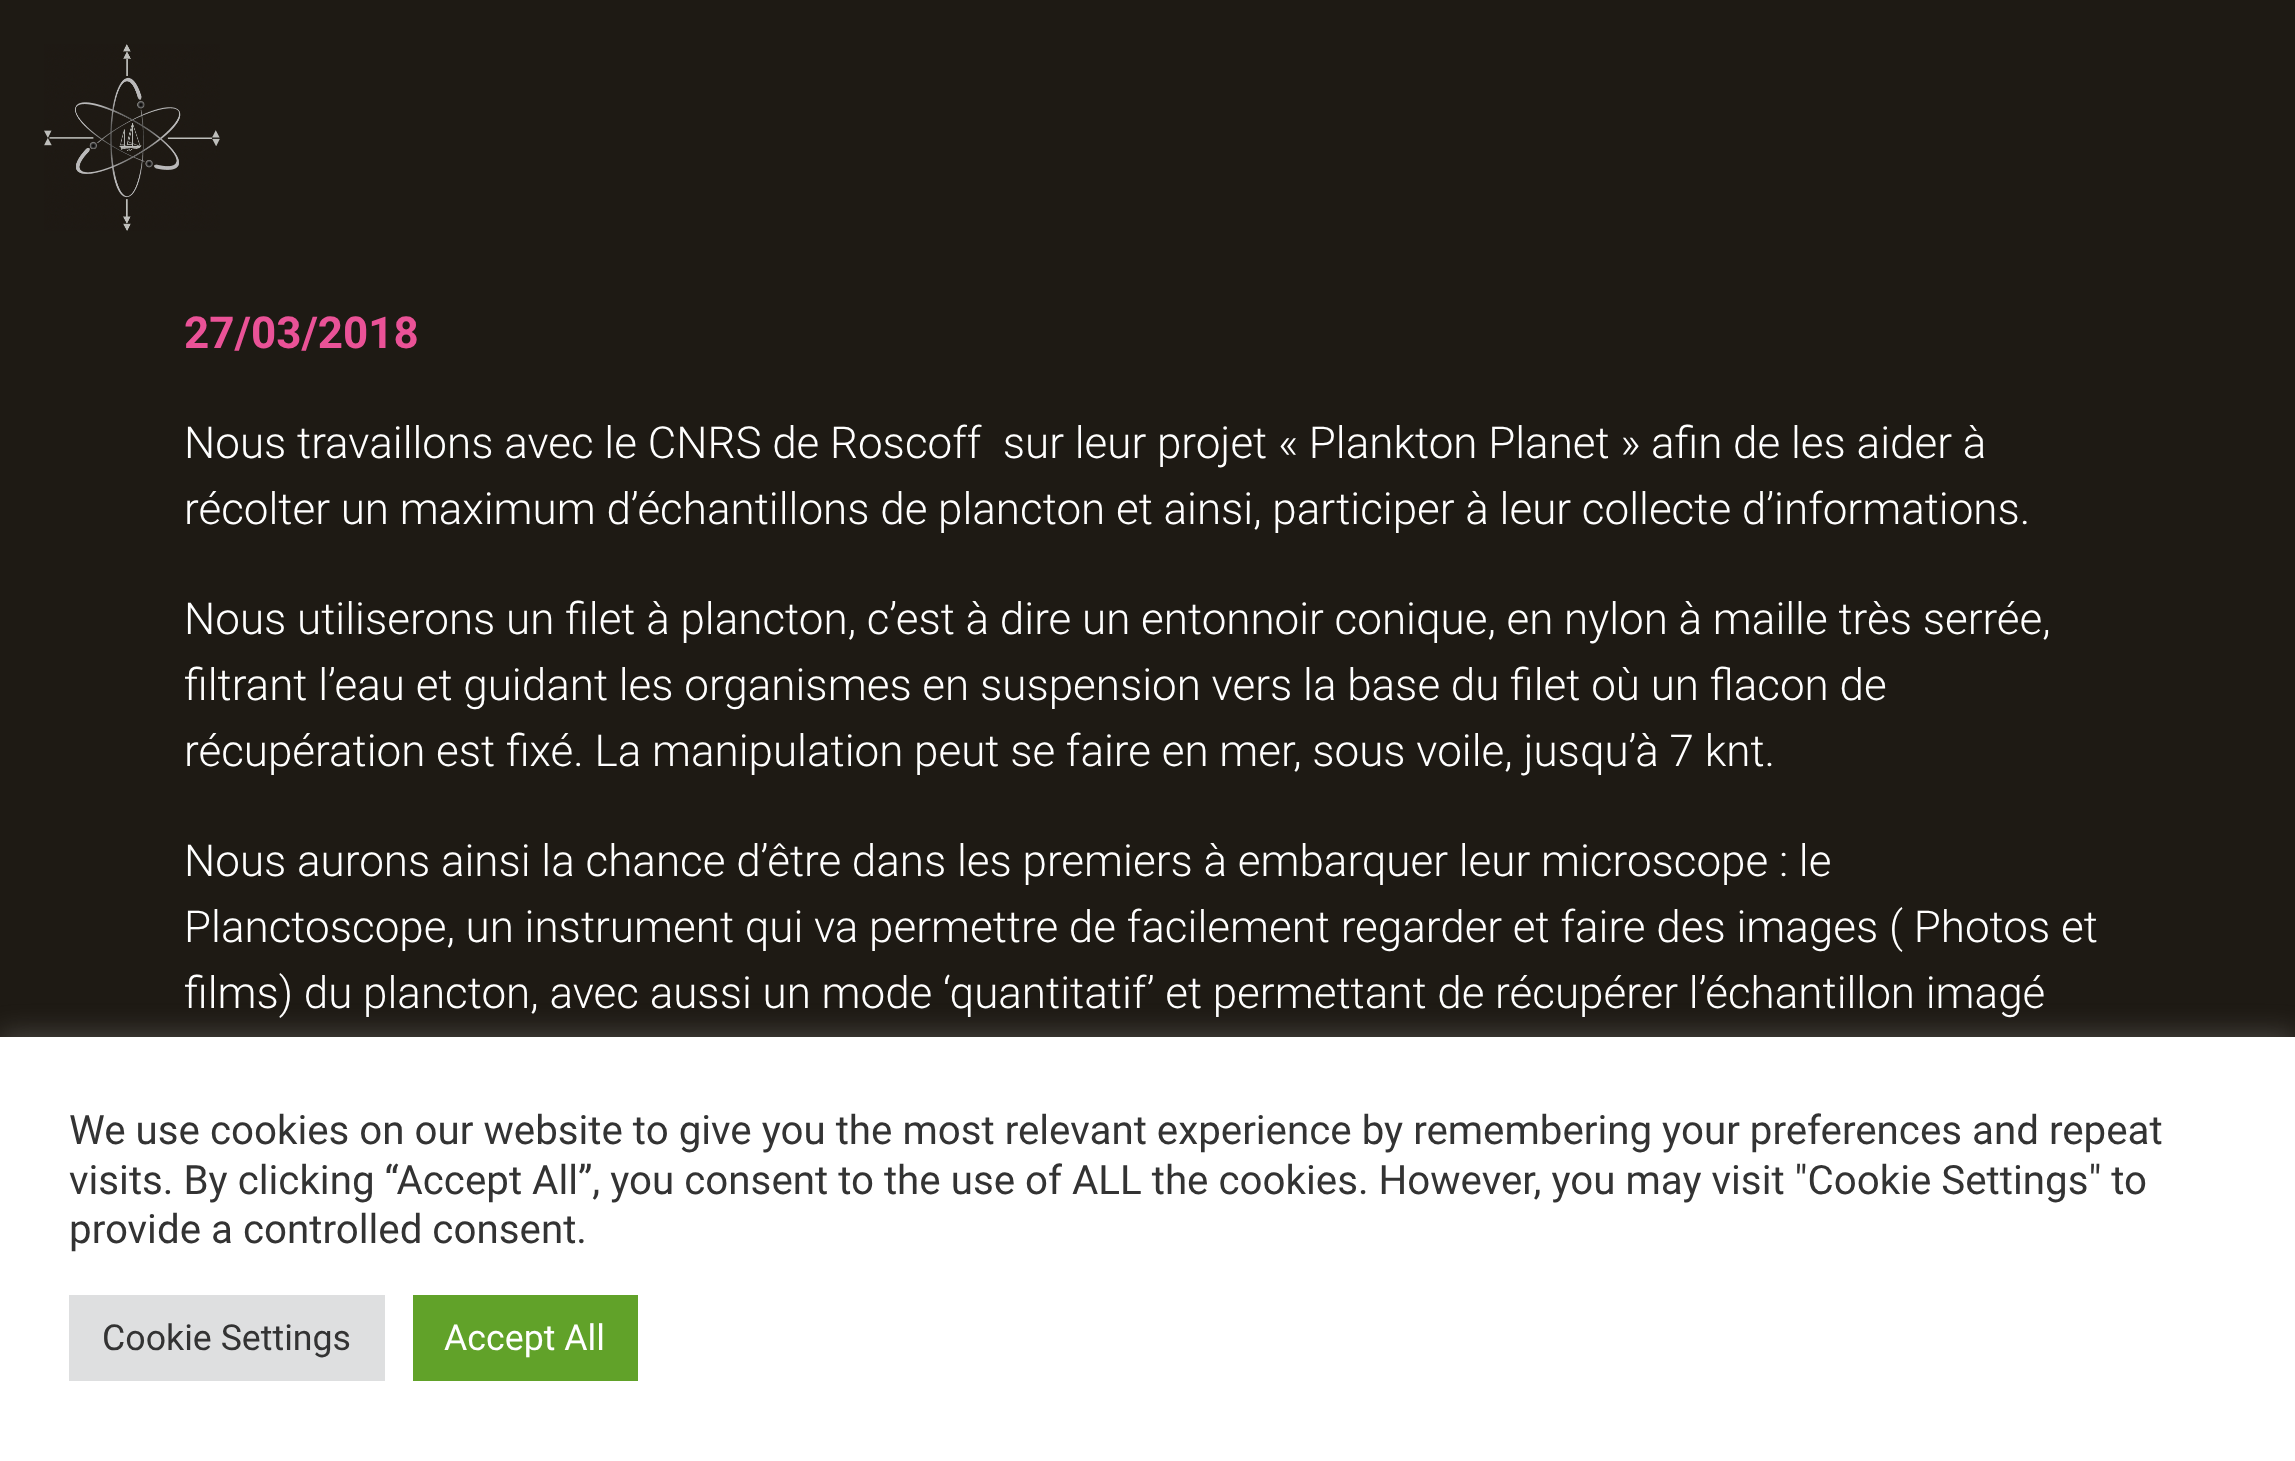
<svg xmlns="http://www.w3.org/2000/svg" width="2295" height="1461" viewBox="0 0 2295 1461">
  <style>
    .t1 { font: bold 44px Roboto; fill: #ea5297; }
    .t2 { font: 300 44px Roboto; fill: #fff; }
    .t3 { font: 40.33px Roboto; fill: #333; }
    .t4 { font: 35.75px Roboto; fill: #333; }
    .t5 { font: 35.75px Roboto; fill: #fff; }
  </style>
  <rect width="100%" height="100%" fill="#1e1a14"/>
  <image x="44" y="44" width="176" height="187" href="images/1.png"/>
  <text x="184" y="348" class="t1">27/03/2018</text>
  <text x="184" y="458" class="t2" xml:space="preserve">Nous travaillons avec le CNRS de Roscoff  sur leur projet « Plankton Planet » afin de les aider à</text>
  <text x="184" y="524" class="t2">récolter un maximum d’échantillons de plancton et ainsi, participer à leur collecte d’informations.</text>
  <text x="184" y="634" class="t2">Nous utiliserons un filet à plancton, c’est à dire un entonnoir conique, en nylon à maille très serrée,</text>
  <text x="184" y="700" class="t2">filtrant l’eau et guidant les organismes en suspension vers la base du filet où un flacon de</text>
  <text x="184" y="766" class="t2">récupération est fixé. La manipulation peut se faire en mer, sous voile, jusqu’à 7 knt.</text>
  <text x="184" y="876" class="t2">Nous aurons ainsi la chance d’être dans les premiers à embarquer leur microscope : le</text>
  <text x="184" y="942" class="t2">Planctoscope, un instrument qui va permettre de facilement regarder et faire des images ( Photos et</text>
  <text x="184" y="1008" class="t2">films) du plancton, avec aussi un mode ‘quantitatif’ et permettant de récupérer l’échantillon imagé</text>
  <rect x="0" y="1034" width="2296" height="426" fill="#acabab4d" filter="blur(14px)"/>
  <rect x="0" y="1037" width="2295" height="424" fill="#fff"/>
  <text x="69" y="1144" class="t3">We use cookies on our website to give you the most relevant experience by remembering your preferences and repeat</text>
  <text x="69" y="1194" class="t3">visits. By clicking “Accept All”, you consent to the use of ALL the cookies. However, you may visit "Cookie Settings" to</text>
  <text x="69" y="1243" class="t3">provide a controlled consent.</text>
  <rect x="69" y="1295" width="316" height="86" fill="#dedfe0"/>
  <text x="102" y="1350" class="t4">Cookie Settings</text>
  <rect x="413" y="1295" width="225" height="86" fill="#61a229"/>
  <text x="444" y="1350" class="t5">Accept All</text>
</svg>
